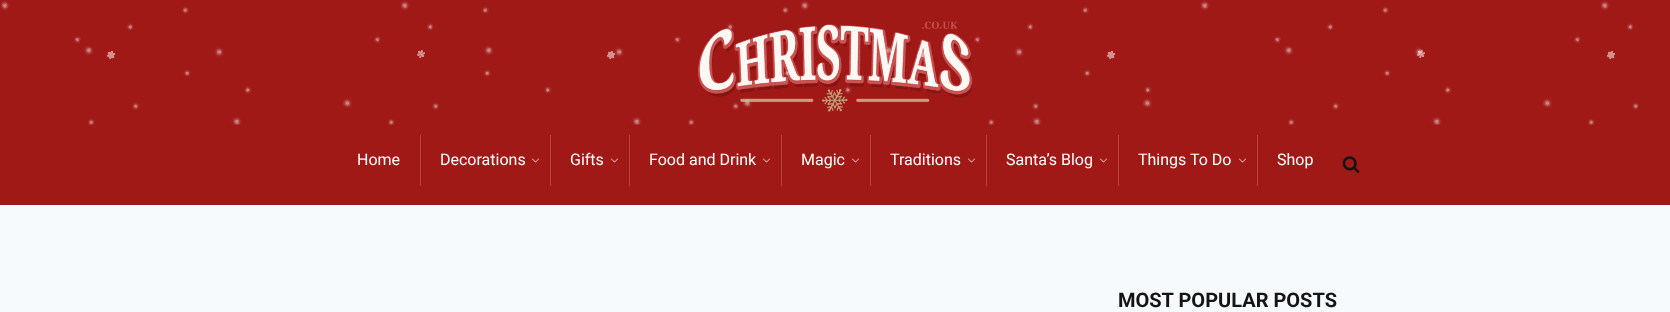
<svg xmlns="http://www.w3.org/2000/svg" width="1670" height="312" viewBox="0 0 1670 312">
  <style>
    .t1 { font: 16px Roboto; fill: #fff; }
    .t2 { font: bold 20px Roboto; fill: #141414; }
  </style>
  <rect width="100%" height="100%" fill="#f7fafc"/>
  <rect x="0" y="0" width="1670" height="205" fill="#a11917"/>
  <image x="698" y="21" width="275" height="91" href="images/2.png"/>
  <image x="1" y="0" width="1638" height="125" href="images/1.png"/>
  <text x="357" y="165" class="t1">Home</text>
  <rect x="420" y="135" width="1" height="51" fill="#b44745"/>
  <text x="440" y="165" class="t1">Decorations</text>
  <image x="532" y="158" width="7" height="5" href="images/3.png"/>
  <rect x="550" y="135" width="1" height="51" fill="#b44745"/>
  <text x="570" y="165" class="t1">Gifts</text>
  <image x="611" y="158" width="7" height="5" href="images/3.png"/>
  <rect x="629" y="135" width="1" height="51" fill="#b44745"/>
  <text x="649" y="165" class="t1">Food and Drink</text>
  <image x="763" y="158" width="7" height="5" href="images/3.png"/>
  <rect x="781" y="135" width="1" height="51" fill="#b44745"/>
  <text x="801" y="165" class="t1">Magic</text>
  <image x="852" y="158" width="7" height="5" href="images/3.png"/>
  <rect x="870" y="135" width="1" height="51" fill="#b44745"/>
  <text x="890" y="165" class="t1">Traditions</text>
  <image x="968" y="158" width="7" height="5" href="images/3.png"/>
  <rect x="986" y="135" width="1" height="51" fill="#b44745"/>
  <text x="1006" y="165" class="t1">Santa’s Blog</text>
  <image x="1100" y="158" width="7" height="5" href="images/3.png"/>
  <rect x="1118" y="135" width="1" height="51" fill="#b44745"/>
  <text x="1138" y="165" class="t1">Things To Do</text>
  <image x="1239" y="158" width="7" height="5" href="images/3.png"/>
  <rect x="1257" y="135" width="1" height="51" fill="#b44745"/>
  <text x="1277" y="165" class="t1">Shop</text>
  <image x="1342" y="156" width="18" height="17" href="images/4.png"/>
  <text x="1118" y="307" class="t2">MOST POPULAR POSTS</text>
</svg>
